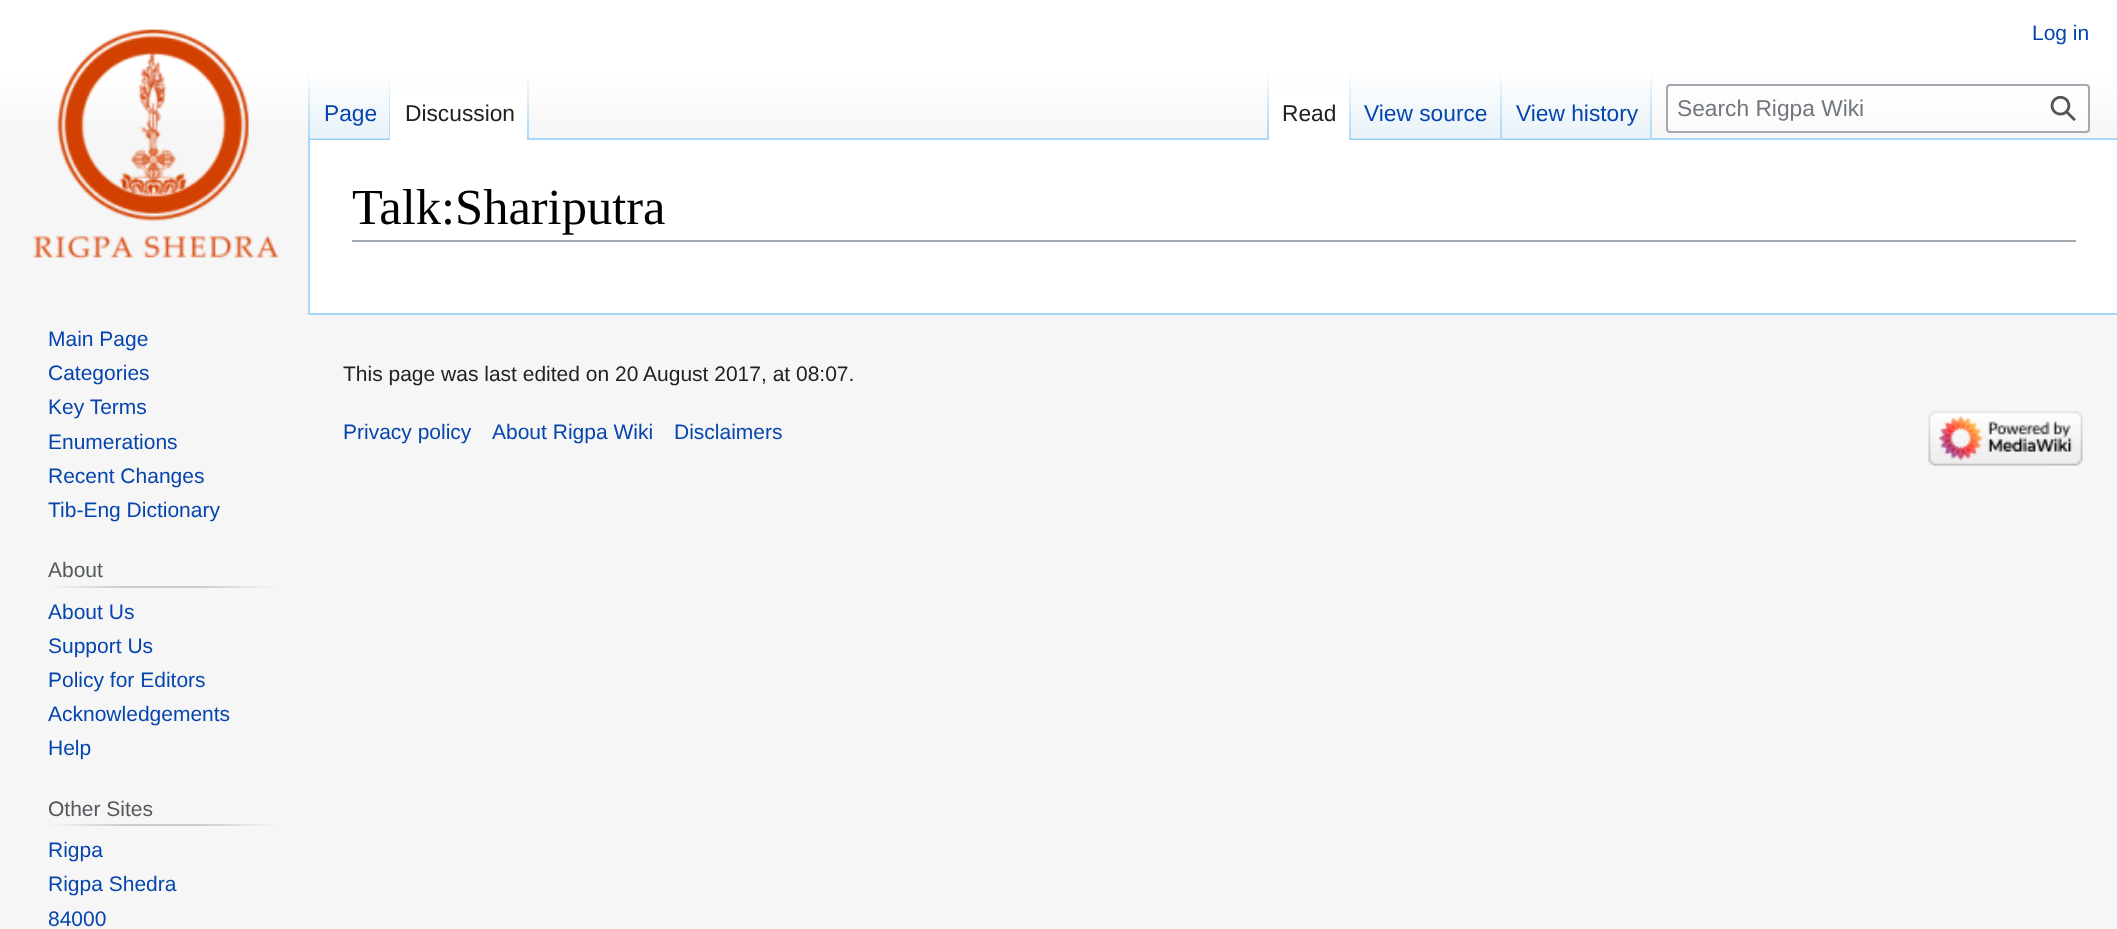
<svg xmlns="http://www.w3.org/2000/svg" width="2117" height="929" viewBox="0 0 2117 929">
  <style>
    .t1 { font: 21px Liberation Sans; fill: #0645ad; }
    .t2 { font: 22.75px Liberation Sans; fill: #0645ad; }
    .t3 { font: 22.75px Liberation Sans; fill: #202122; }
    .t4 { font: 22.75px Liberation Sans; fill: #72777d; }
    .t5 { font: 21px Liberation Sans; fill: #54595d; }
    .t6 { font: 50.5px Liberation Serif; fill: #000; }
    .t7 { font: 21px Liberation Sans; fill: #202122; }
  </style>
  <defs>
    <linearGradient id="g1" gradientUnits="userSpaceOnUse" x1="1059" y1="0" x2="1059" y2="140"><stop offset="0.5" stop-color="#fff"/><stop offset="1" stop-color="#f6f6f6"/></linearGradient>
    <linearGradient id="g2" gradientUnits="userSpaceOnUse" x1="309" y1="70" x2="309" y2="140"><stop offset="0" stop-color="#a7d7f9" stop-opacity="0"/><stop offset="1" stop-color="#a7d7f9"/></linearGradient>
    <linearGradient id="g3" gradientUnits="userSpaceOnUse" x1="350" y1="140" x2="350" y2="70"><stop offset="0" stop-color="#77c1f6"/><stop offset="0.03" stop-color="#e8f2f8"/><stop offset="1" stop-color="#fff"/></linearGradient>
    <linearGradient id="g4" gradientUnits="userSpaceOnUse" x1="389" y1="70" x2="389" y2="140"><stop offset="0" stop-color="#a7d7f9" stop-opacity="0"/><stop offset="1" stop-color="#a7d7f9"/></linearGradient>
    <linearGradient id="g5" gradientUnits="userSpaceOnUse" x1="528" y1="70" x2="528" y2="140"><stop offset="0" stop-color="#fff"/><stop offset="1" stop-color="#a7d7f9"/></linearGradient>
    <linearGradient id="g6" gradientUnits="userSpaceOnUse" x1="1268" y1="70" x2="1268" y2="140"><stop offset="0" stop-color="#a7d7f9" stop-opacity="0"/><stop offset="1" stop-color="#a7d7f9"/></linearGradient>
    <linearGradient id="g7" gradientUnits="userSpaceOnUse" x1="1350" y1="70" x2="1350" y2="140"><stop offset="0" stop-color="#fff"/><stop offset="1" stop-color="#a7d7f9"/></linearGradient>
    <linearGradient id="g8" gradientUnits="userSpaceOnUse" x1="1426" y1="140" x2="1426" y2="70"><stop offset="0" stop-color="#77c1f6"/><stop offset="0.03" stop-color="#e8f2f8"/><stop offset="1" stop-color="#fff"/></linearGradient>
    <linearGradient id="g9" gradientUnits="userSpaceOnUse" x1="1501" y1="70" x2="1501" y2="140"><stop offset="0" stop-color="#a7d7f9" stop-opacity="0"/><stop offset="1" stop-color="#a7d7f9"/></linearGradient>
    <linearGradient id="g10" gradientUnits="userSpaceOnUse" x1="1577" y1="140" x2="1577" y2="70"><stop offset="0" stop-color="#77c1f6"/><stop offset="0.03" stop-color="#e8f2f8"/><stop offset="1" stop-color="#fff"/></linearGradient>
    <linearGradient id="g11" gradientUnits="userSpaceOnUse" x1="1651" y1="70" x2="1651" y2="140"><stop offset="0" stop-color="#a7d7f9" stop-opacity="0"/><stop offset="1" stop-color="#a7d7f9"/></linearGradient>
    <linearGradient id="g12" gradientUnits="userSpaceOnUse" x1="47" y1="587" x2="277" y2="587"><stop offset="0" stop-color="#f6f6f6"/><stop offset="0.33" stop-color="#c8ccd1"/><stop offset="0.66" stop-color="#c8ccd1"/><stop offset="1" stop-color="#f6f6f6"/></linearGradient>
    <linearGradient id="g13" gradientUnits="userSpaceOnUse" x1="47" y1="825" x2="277" y2="825"><stop offset="0" stop-color="#f6f6f6"/><stop offset="0.33" stop-color="#c8ccd1"/><stop offset="0.66" stop-color="#c8ccd1"/><stop offset="1" stop-color="#f6f6f6"/></linearGradient>
  </defs>
  <rect width="100%" height="100%" fill="#f6f6f6"/>
  <rect x="0" y="0" width="2117" height="121" fill="url(#g1)"/>
  <text x="2032" y="40" class="t1">Log in</text>
  <rect x="308" y="313" width="1809" height="2" fill="#a7d7f9"/>
  <rect x="308" y="138" width="2" height="177" fill="#a7d7f9"/>
  <rect x="308" y="70" width="2" height="70" fill="url(#g2)"/>
  <rect x="310" y="80" width="80" height="60" fill="url(#g3)"/>
  <rect x="389" y="70" width="1" height="70" fill="url(#g4)"/>
  <text x="324" y="121" class="t2">Page</text>
  <rect x="390" y="89" width="137" height="51" fill="#fff"/>
  <rect x="527" y="70" width="2" height="70" fill="url(#g5)"/>
  <text x="405" y="121" class="t3">Discussion</text>
  <rect x="529" y="138" width="1588" height="2" fill="#a7d7f9"/>
  <rect x="1267" y="70" width="2" height="70" fill="url(#g6)"/>
  <rect x="1269" y="89" width="80" height="51" fill="#fff"/>
  <rect x="1349" y="70" width="2" height="70" fill="url(#g7)"/>
  <text x="1282" y="121" class="t3">Read</text>
  <rect x="1351" y="80" width="151" height="60" fill="url(#g8)"/>
  <rect x="1500" y="70" width="2" height="70" fill="url(#g9)"/>
  <text x="1364" y="121" class="t2">View source</text>
  <rect x="1502" y="80" width="150" height="60" fill="url(#g10)"/>
  <rect x="1650" y="70" width="2" height="70" fill="url(#g11)"/>
  <text x="1516" y="121" class="t2">View history</text>
  <rect x="1667" y="85" width="422" height="47" rx="3" fill="#ffffff80" stroke="#a2a9b1" stroke-width="2"/>
  <text x="1677" y="116" class="t4">Search Rigpa Wiki</text>
  <image x="2050" y="95" width="26" height="26" href="images/1.png"/>
  <image x="33" y="29" width="246" height="231" href="images/2.png"/>
  <text x="48" y="346" class="t1">Main Page</text>
  <text x="48" y="380" class="t1">Categories</text>
  <text x="48" y="414" class="t1">Key Terms</text>
  <text x="48" y="449" class="t1">Enumerations</text>
  <text x="48" y="483" class="t1">Recent Changes</text>
  <text x="48" y="517" class="t1">Tib-Eng Dictionary</text>
  <rect x="47" y="586" width="230" height="2" fill="url(#g12)"/>
  <text x="48" y="577" class="t5">About</text>
  <text x="48" y="619" class="t1">About Us</text>
  <text x="48" y="653" class="t1">Support Us</text>
  <text x="48" y="687" class="t1">Policy for Editors</text>
  <text x="48" y="721" class="t1">Acknowledgements</text>
  <text x="48" y="755" class="t1">Help</text>
  <rect x="47" y="824" width="230" height="2" fill="url(#g13)"/>
  <text x="48" y="816" class="t5">Other Sites</text>
  <text x="48" y="857" class="t1">Rigpa</text>
  <text x="48" y="891" class="t1">Rigpa Shedra</text>
  <text x="48" y="926" class="t1">84000</text>
  <rect x="310" y="140" width="1807" height="173" fill="#fff"/>
  <rect x="352" y="240" width="1724" height="2" fill="#a2a9b1"/>
  <text x="352" y="224" class="t6">Talk:Shariputra</text>
  <text x="343" y="381" class="t7">This page was last edited on 20 August 2017, at 08:07.</text>
  <text x="343" y="439" class="t1">Privacy policy</text>
  <text x="492" y="439" class="t1">About Rigpa Wiki</text>
  <text x="674" y="439" class="t1">Disclaimers</text>
  <image x="1928" y="411" width="155" height="55" href="images/3.png"/>
</svg>
